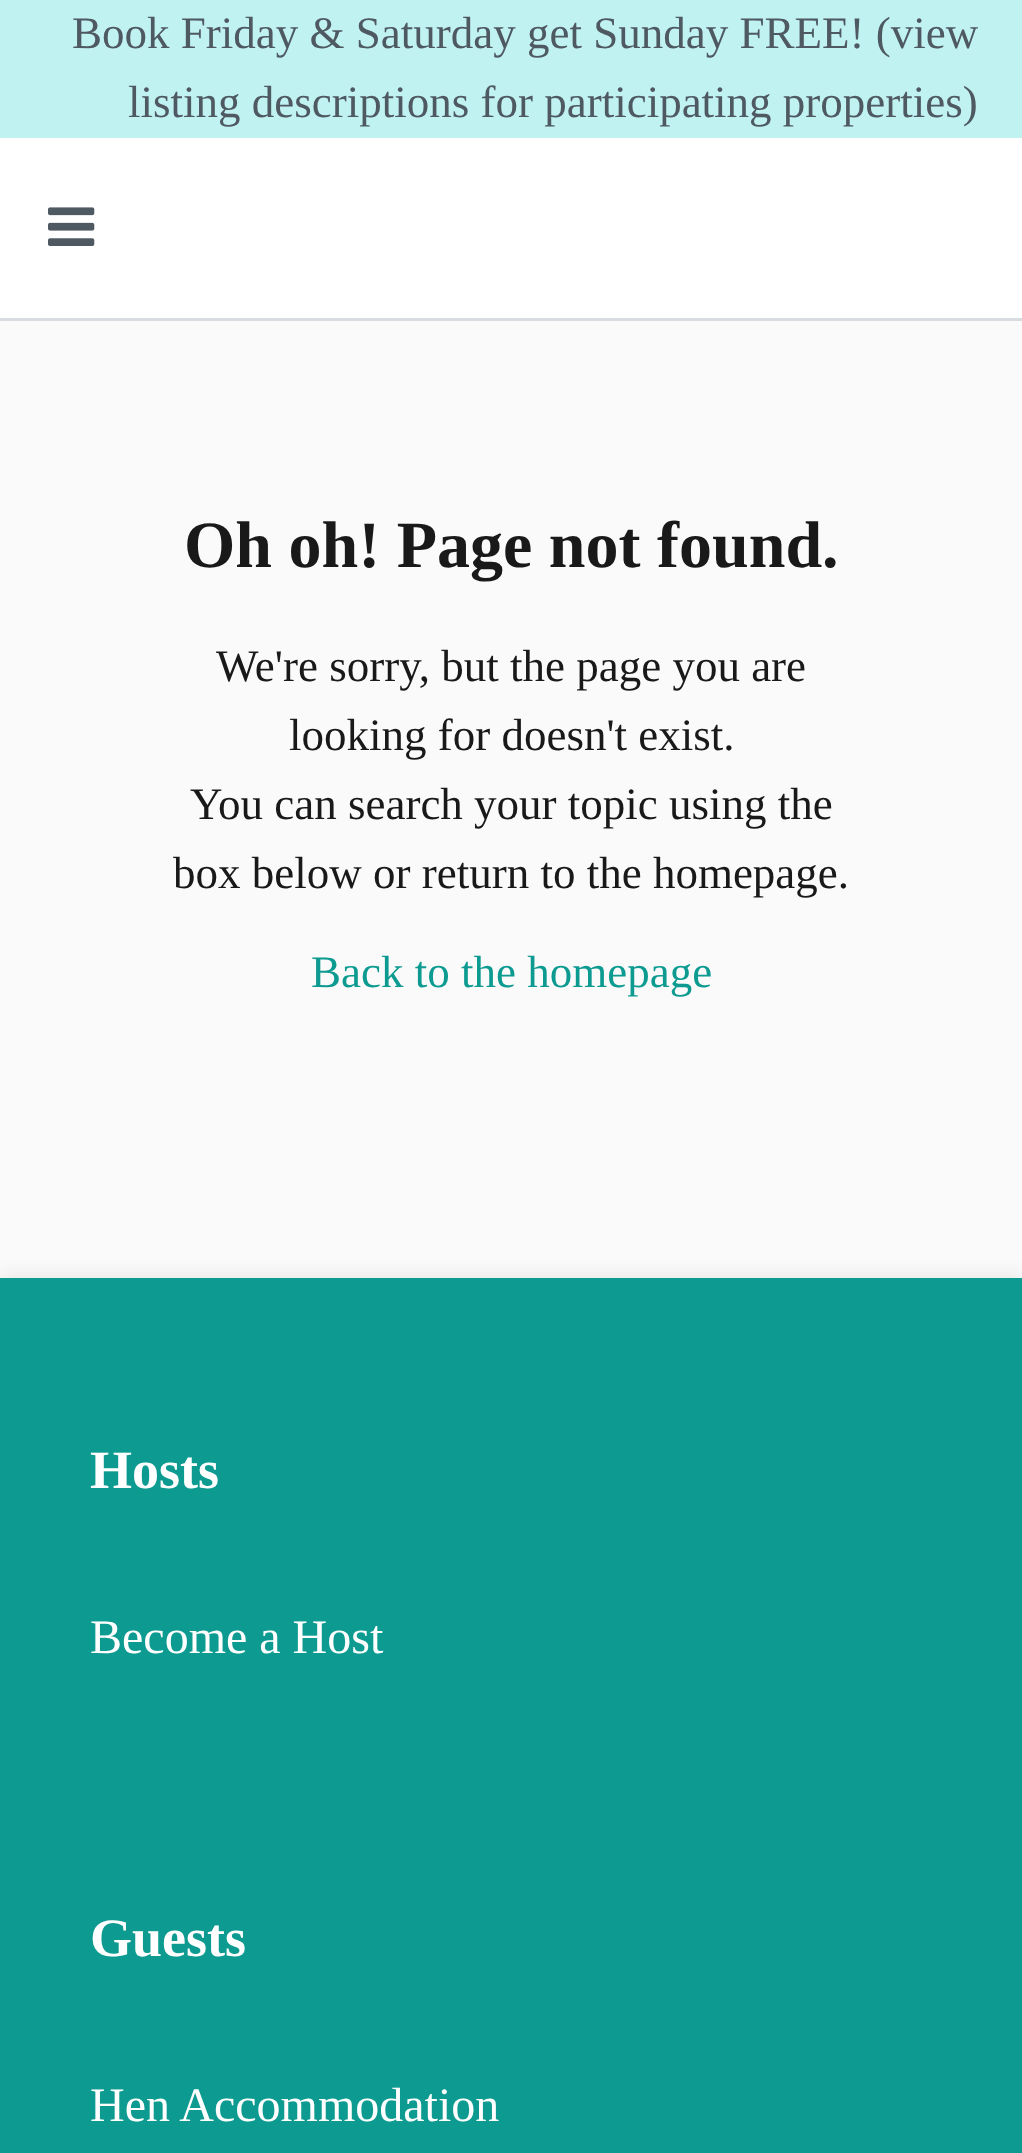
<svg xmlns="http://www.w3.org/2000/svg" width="1022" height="2153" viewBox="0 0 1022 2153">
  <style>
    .t1 { font: 45px Liberation Serif; fill: #4f5962; }
    .t2 { font: bold 66px Liberation Serif; fill: #191919; }
    .t3 { font: 45px Liberation Serif; fill: #191919; }
    .t4 { font: 45px Liberation Serif; fill: #0d9b91; }
    .t5 { font: bold 54px Liberation Serif; fill: #fff; }
    .t6 { font: 48px Liberation Serif; fill: #fff; }
  </style>
  <rect width="100%" height="100%" fill="#fafafa"/>
  <rect x="0" y="0" width="1022" height="138" fill="#c0f2f2"/>
  <text x="72" y="48" class="t1">Book Friday &amp; Saturday get Sunday FREE! (view</text>
  <text x="128" y="117" class="t1">listing descriptions for participating properties)</text>
  <rect x="0" y="138" width="1022" height="180" fill="#fff"/>
  <rect x="0" y="318" width="1022" height="3" fill="#d8dce1"/>
  <image x="48" y="207" width="47" height="39" href="images/1.png"/>
  <text x="184" y="567" class="t2">Oh oh! Page not found.</text>
  <text x="216" y="681" class="t3">We're sorry, but the page you are</text>
  <text x="289" y="750" class="t3">looking for doesn't exist.</text>
  <text x="190" y="819" class="t3">You can search your topic using the</text>
  <text x="173" y="888" class="t3">box below or return to the homepage.</text>
  <text x="311" y="987" class="t4">Back to the homepage</text>
  <rect x="0" y="1275" width="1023" height="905" fill="#00000014" filter="blur(9px)"/>
  <rect x="0" y="1278" width="1022" height="875" fill="#0d9b91"/>
  <text x="90" y="1488" class="t5">Hosts</text>
  <text x="90" y="1653" class="t6">Become a Host</text>
  <text x="90" y="1956" class="t5">Guests</text>
  <text x="90" y="2121" class="t6">Hen Accommodation</text>
</svg>
